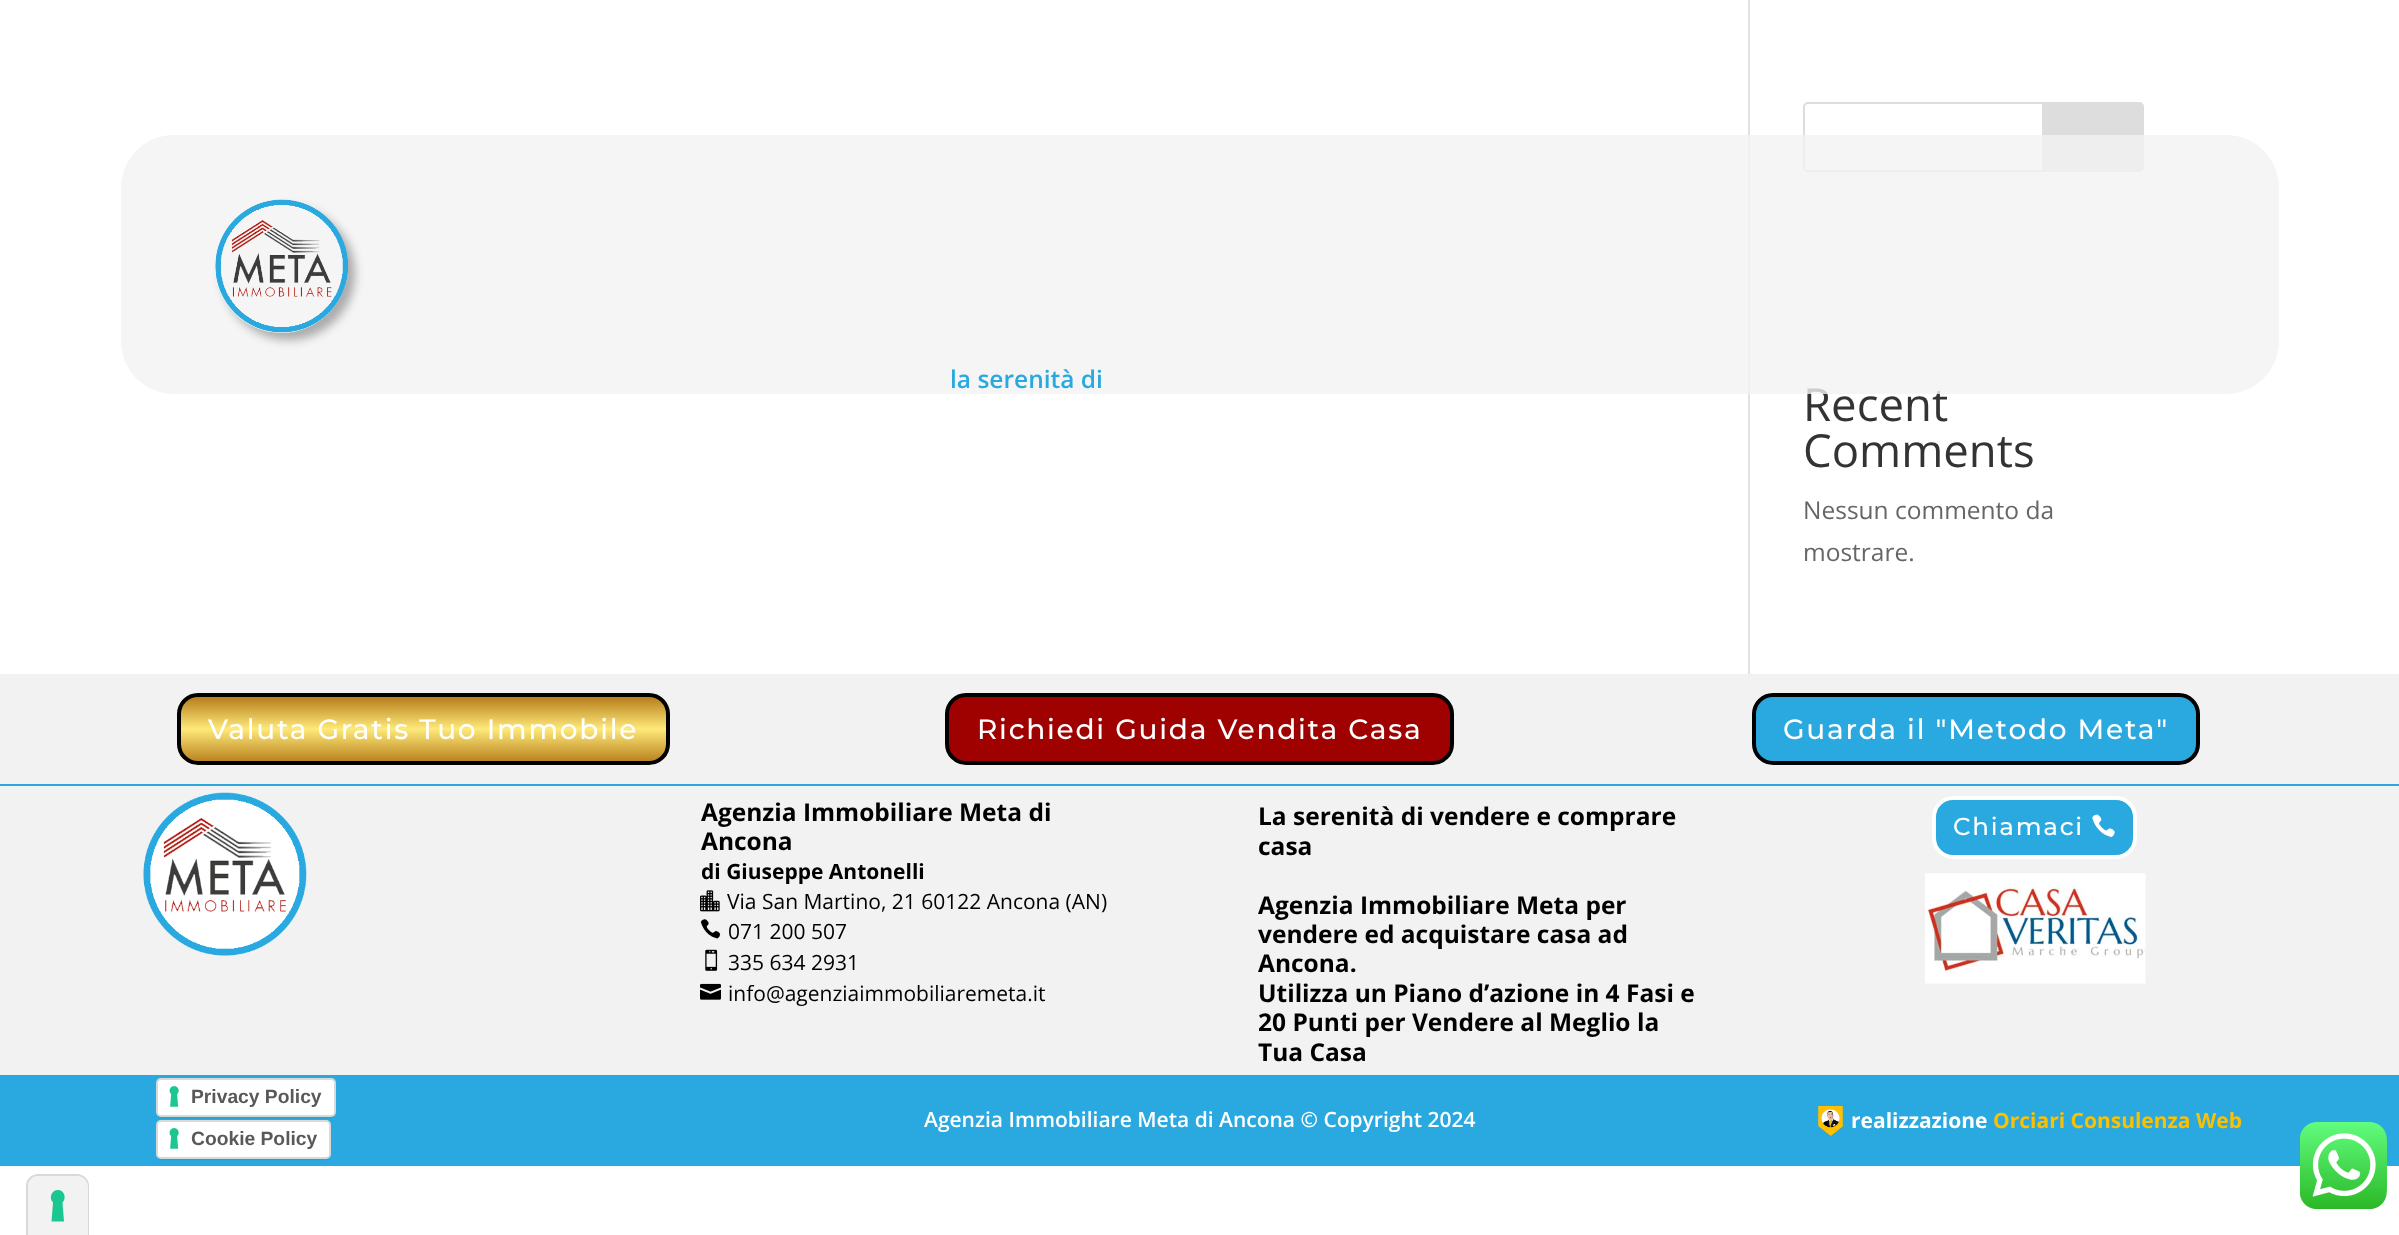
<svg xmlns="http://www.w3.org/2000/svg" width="2399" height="1235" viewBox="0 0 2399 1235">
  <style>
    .t1 { font: 45.5px Open Sans; fill: #333; }
    .t2 { font: 600 24.5px Open Sans; fill: #29a9df; }
    .t3 { font: 24.5px Open Sans; fill: #666; }
    .t4 { font: 500 28px Montserrat; letter-spacing: 1.75px; fill: #fff; }
    .t5 { font: bold 24.5px Open Sans; fill: #000; }
    .t6 { font: bold 21px Open Sans; fill: #000; }
    .t7 { font: 21px Open Sans; fill: #000; }
    .t8 { font: 500 24.5px Montserrat; letter-spacing: 1.75px; fill: #fff; }
    .t9 { font: bold 19.25px Liberation Sans; fill: #595959; }
    .t10 { font: 600 21px Open Sans; fill: #fff; }
    .t11 { font: bold 21px Open Sans; fill: #fff; }
    .t12 { font: bold 21px Open Sans; fill: #fcc000; }
  </style>
  <defs>
    <clipPath id="clip1"><path d="M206 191H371V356H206ZM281.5 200C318 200 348 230 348 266.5C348 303 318 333 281.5 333C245 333 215 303 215 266.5C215 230 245 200 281.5 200Z" clip-rule="evenodd"/></clipPath>
    <clipPath id="clip2"><rect x="177" y="693" width="493" height="72" rx="21"/></clipPath>
    <linearGradient id="g1" gradientUnits="userSpaceOnUse" x1="424" y1="697" x2="424" y2="761"><stop offset="0" stop-color="#b77e1c"/><stop offset="0.5" stop-color="#fee979"/><stop offset="1" stop-color="#bb8420"/></linearGradient>
  </defs>
  <rect width="100%" height="100%" fill="#fff"/>
  <rect x="1748" y="0" width="2" height="674" fill="#e2e2e2"/>
  <rect x="1804" y="103" width="339" height="68" rx="4" fill="none" stroke="#ddd" stroke-width="2"/>
  <path d="M2043 103H2139C2141 103 2143 105 2143 107V167C2143 169 2141 171 2139 171H2043Z" fill="#ddd" stroke="#ddd" stroke-width="2"/>
  <text x="1803" y="421" class="t1">Recent</text>
  <rect x="121" y="135" width="2158" height="259" rx="53" fill="#f2f2f2cc"/>
  <g clip-path="url(#clip1)">
    <rect x="222" y="207" width="133" height="133" rx="66.5" fill="#0000004d" filter="blur(5px)"/>
  </g>
  <image x="215" y="199" width="134" height="134" href="images/1.png"/>
  <text x="950" y="388" class="t2">la serenità di</text>
  <text x="1803" y="467" class="t1">Comments</text>
  <text x="1803" y="519" class="t3">Nessun commento da</text>
  <text x="1803" y="561" class="t3">mostrare.</text>
  <rect x="0" y="674" width="2399" height="110" fill="#f2f2f2"/>
  <rect x="0" y="784" width="2399" height="2" fill="#29a9df"/>
  <g clip-path="url(#clip2)">
    <rect x="180" y="697" width="487" height="64" fill="url(#g1)"/>
  </g>
  <rect x="179" y="695" width="489" height="68" rx="19" fill="none" stroke="#000" stroke-width="4"/>
  <text x="208" y="739" class="t4">Valuta Gratis Tuo Immobile</text>
  <rect x="947" y="695" width="505" height="68" rx="19" fill="#9f0000" stroke="#000" stroke-width="4"/>
  <text x="977" y="739" class="t4">Richiedi Guida Vendita Casa</text>
  <rect x="1754" y="695" width="444" height="68" rx="19" fill="#29a9df" stroke="#000" stroke-width="4"/>
  <text x="1783" y="739" class="t4">Guarda il "Metodo Meta"</text>
  <rect x="0" y="786" width="2399" height="289" fill="#f2f2f2"/>
  <image x="143" y="792" width="164" height="164" href="images/2.png"/>
  <text x="701" y="821" class="t5">Agenzia Immobiliare Meta di</text>
  <text x="701" y="850" class="t5">Ancona</text>
  <text x="701" y="879" class="t6">di Giuseppe Antonelli</text>
  <image x="700" y="890" width="20" height="22" href="images/3.png"/>
  <text x="727" y="909" class="t7">Via San Martino, 21 60122 Ancona (AN)</text>
  <image x="700" y="919" width="21" height="20" href="images/4.png"/>
  <text x="728" y="939" class="t7">071 200 507</text>
  <image x="705" y="949" width="13" height="22" href="images/5.png"/>
  <text x="728" y="970" class="t7">335 634 2931</text>
  <image x="700" y="983" width="21" height="17" href="images/6.png"/>
  <text x="728" y="1001" class="t7">info@agenziaimmobiliaremeta.it</text>
  <text x="1258" y="825" class="t5">La serenità di vendere e comprare</text>
  <text x="1258" y="855" class="t5">casa</text>
  <text x="1258" y="914" class="t5">Agenzia Immobiliare Meta per</text>
  <text x="1258" y="943" class="t5">vendere ed acquistare casa ad</text>
  <text x="1258" y="972" class="t5">Ancona.</text>
  <text x="1258" y="1002" class="t5">Utilizza un Piano d’azione in 4 Fasi e</text>
  <text x="1258" y="1031" class="t5">20 Punti per Vendere al Meglio la</text>
  <text x="1258" y="1061" class="t5">Tua Casa</text>
  <rect x="1934" y="798" width="201" height="59" rx="19" fill="#29a9df" stroke="#fff" stroke-width="4"/>
  <text x="1953" y="835" class="t8">Chiamaci</text>
  <image x="2092" y="814" width="23" height="23" href="images/7.png"/>
  <image x="1925" y="873" width="221" height="111" href="images/8.png"/>
  <rect x="0" y="1075" width="2399" height="91" fill="#29a9df"/>
  <rect x="158" y="1082" width="176" height="35" rx="4" fill="#00000026" filter="blur(1px)"/>
  <rect x="156" y="1078" width="180" height="39" rx="5" fill="#fff"/>
  <image x="169" y="1086" width="10" height="21" href="images/9.png"/>
  <rect x="157" y="1079" width="178" height="37" rx="4" fill="none" stroke="#00000026" stroke-width="2"/>
  <text x="191" y="1103" class="t9">Privacy Policy</text>
  <rect x="158" y="1124" width="171" height="35" rx="4" fill="#00000026" filter="blur(1px)"/>
  <rect x="156" y="1120" width="175" height="39" rx="5" fill="#fff"/>
  <image x="169" y="1128" width="10" height="21" href="images/9.png"/>
  <rect x="157" y="1121" width="173" height="37" rx="4" fill="none" stroke="#00000026" stroke-width="2"/>
  <text x="191" y="1145" class="t9">Cookie Policy</text>
  <text x="924" y="1127" class="t10">Agenzia Immobiliare Meta di Ancona © Copyright 2024</text>
  <image x="1818" y="1106" width="25" height="31" href="images/10.png"/>
  <text x="1851" y="1128" class="t11">realizzazione</text>
  <text x="1993" y="1128" class="t12">Orciari Consulenza Web</text>
  <path d="M38 1175H77C83 1175 88 1180 88 1186V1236H27V1186C27 1180 32 1175 38 1175Z" fill="none" stroke="#d9d9d9" stroke-width="2"/>
  <path d="M39 1176H77C83 1176 88 1181 88 1187V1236H28V1187C28 1181 33 1176 39 1176Z" fill="#f2f2f2"/>
  <path d="M58 1190C64 1190 67 1198 62.5 1202.5L64 1221.5H51.5L53 1202.5C48.5 1198 51.5 1190 58 1190Z" fill="#1cc691" fill-rule="evenodd"/>
  <image x="2300" y="1122" width="87" height="87" href="images/11.png"/>
</svg>
